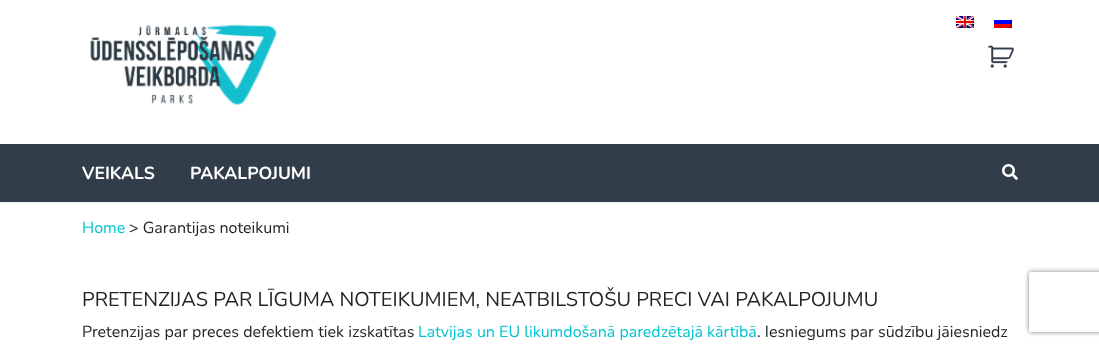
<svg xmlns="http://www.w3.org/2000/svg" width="1099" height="346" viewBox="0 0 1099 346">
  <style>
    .t1 { font: bold 17.5px Nunito; fill: #fff; }
    .t2 { font: 16px Nunito; fill: #00c2d2; }
    .t3 { font: 16px Nunito; fill: #212529; }
    .t4 { font: 20px Nunito; fill: #212529; }
  </style>
  <defs>
    <clipPath id="clip1"><rect x="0" y="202" width="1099" height="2"/></clipPath>
    <clipPath id="clip2"><path d="M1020 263H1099V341H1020ZM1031 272H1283C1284 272 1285 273 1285 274V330C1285 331 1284 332 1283 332H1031C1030 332 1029 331 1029 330V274C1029 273 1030 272 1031 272Z" clip-rule="evenodd"/></clipPath>
  </defs>
  <rect width="100%" height="100%" fill="#fff"/>
  <g clip-path="url(#clip1)">
    <rect x="0" y="1" width="1099" height="202" fill="#0000001a" filter="blur(1.5px)"/>
  </g>
  <image x="956" y="16" width="18" height="12" href="images/1.png"/>
  <image x="994" y="18" width="18" height="10" href="images/2.png"/>
  <image x="90" y="24" width="187" height="82" href="images/3.png"/>
  <image x="988" y="45" width="26" height="23" href="images/4.png"/>
  <rect x="0" y="144" width="1099" height="58" fill="#313e49"/>
  <text x="82" y="179" class="t1">VEIKALS</text>
  <text x="190" y="179" class="t1">PAKALPOJUMI</text>
  <image x="1002" y="164" width="16" height="16" href="images/5.png"/>
  <text x="82" y="233" class="t2">Home</text>
  <text x="129" y="233" class="t3">&gt; Garantijas noteikumi</text>
  <text x="82" y="306" class="t4">PRETENZIJAS PAR LĪGUMA NOTEIKUMIEM, NEATBILSTOŠU PRECI VAI PAKALPOJUMU</text>
  <text x="82" y="337" class="t3">Pretenzijas par preces defektiem tiek izskatītas</text>
  <text x="418" y="337" class="t2">Latvijas un EU likumdošanā paredzētajā kārtībā</text>
  <text x="757" y="337" class="t3">. Iesniegums par sūdzību jāiesniedz</text>
  <g clip-path="url(#clip2)">
    <rect x="1029" y="272" width="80" height="60" rx="2" fill="#808080" filter="blur(2.5px)"/>
  </g>
</svg>
